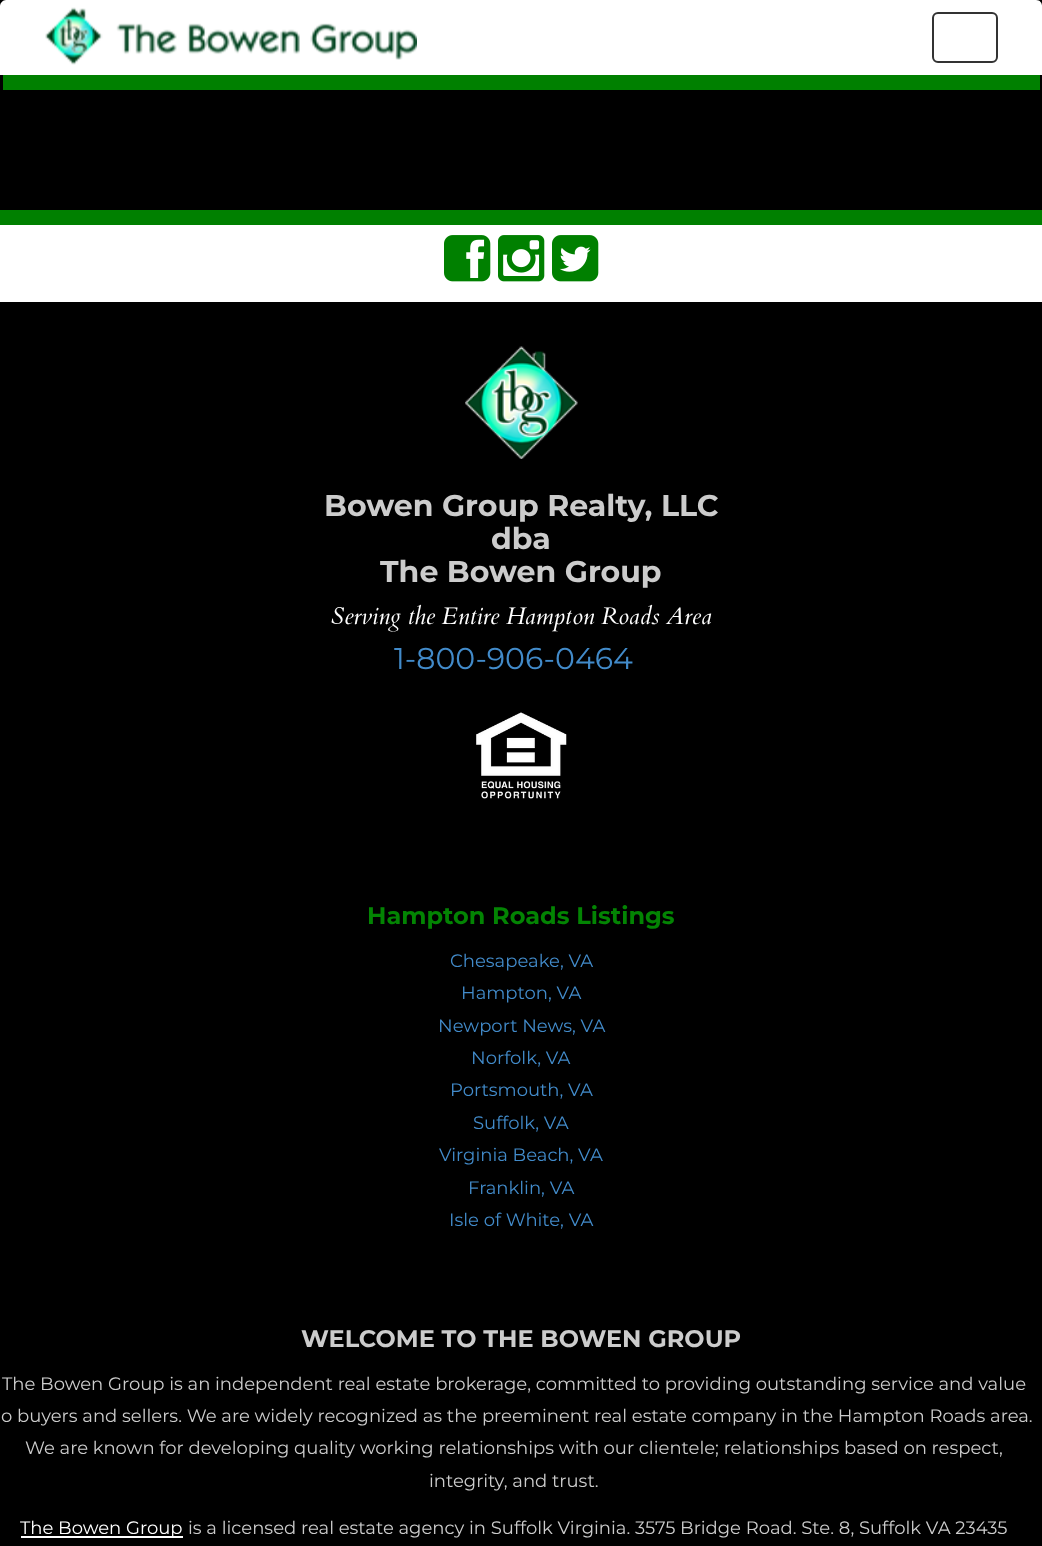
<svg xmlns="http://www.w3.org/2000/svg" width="1042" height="1546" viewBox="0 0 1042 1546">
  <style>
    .t1 { font: bold 30px Montserrat; fill: #ccc; }
    .t2 { font: italic 24px Cardo; fill: #fff; }
    .t3 { font: 30px Montserrat; fill: #428bca; }
    .t4 { font: bold 24px Montserrat; fill: #038403; }
    .t5 { font: 18px Montserrat; fill: #428bca; }
    .t6 { font: bold 24px Montserrat; fill: #ccc; }
    .t7 { font: 18px Montserrat; fill: #ccc; }
    .t8 { font: 18px Montserrat; fill: #fff; }
  </style>
  <rect width="100%" height="100%" fill="#000"/>
  <path d="M6 0H1036C1040 0 1042 3 1042 6V75H0V6C0 3 3 0 6 0Z" fill="#fff"/>
  <rect x="3" y="75" width="1037" height="15" fill="#008000"/>
  <image x="45" y="7" width="372" height="58" href="images/1.png"/>
  <rect x="933" y="13" width="64" height="49" rx="5" fill="none" stroke="#333" stroke-width="2"/>
  <rect x="0" y="225" width="1042" height="77" fill="#fff"/>
  <rect x="0" y="210" width="1042" height="15" fill="#008000"/>
  <image x="444" y="235" width="47" height="47" href="images/2.png"/>
  <image x="498" y="235" width="47" height="47" href="images/3.png"/>
  <image x="552" y="235" width="47" height="47" href="images/4.png"/>
  <image x="465" y="346" width="113" height="113" href="images/5.png"/>
  <text x="324" y="516" class="t1">Bowen Group Realty, LLC</text>
  <text x="491" y="549" class="t1">dba</text>
  <text x="380" y="582" class="t1">The Bowen Group</text>
  <text x="331" y="624" class="t2">Serving the Entire Hampton Roads Area</text>
  <text x="394" y="669" class="t3">1-800-906-0464</text>
  <image x="476" y="712" width="91" height="87" href="images/6.png"/>
  <text x="367" y="924" class="t4">Hampton Roads Listings</text>
  <text x="450" y="967" class="t5">Chesapeake, VA</text>
  <text x="461" y="999" class="t5">Hampton, VA</text>
  <text x="438" y="1032" class="t5">Newport News, VA</text>
  <text x="471" y="1064" class="t5">Norfolk, VA</text>
  <text x="450" y="1096" class="t5">Portsmouth, VA</text>
  <text x="473" y="1129" class="t5">Suffolk, VA</text>
  <text x="439" y="1161" class="t5">Virginia Beach, VA</text>
  <text x="468" y="1194" class="t5">Franklin, VA</text>
  <text x="449" y="1226" class="t5">Isle of White, VA</text>
  <text x="301" y="1347" class="t6">WELCOME TO THE BOWEN GROUP</text>
  <text x="2" y="1390" class="t7">The Bowen Group is an independent real estate brokerage, committed to providing outstanding service and value</text>
  <text x="1" y="1422" class="t7">o buyers and sellers. We are widely recognized as the preeminent real estate company in the Hampton Roads area.</text>
  <text x="25" y="1454" class="t7">We are known for developing quality working relationships with our clientele; relationships based on respect,</text>
  <text x="429" y="1487" class="t7">integrity, and trust.</text>
  <rect x="21" y="1536" width="162" height="2" fill="#fff"/>
  <text x="20" y="1534" class="t8">The Bowen Group</text>
  <text x="188" y="1534" class="t7">is a licensed real estate agency in Suffolk Virginia. 3575 Bridge Road. Ste. 8, Suffolk VA 23435</text>
</svg>
